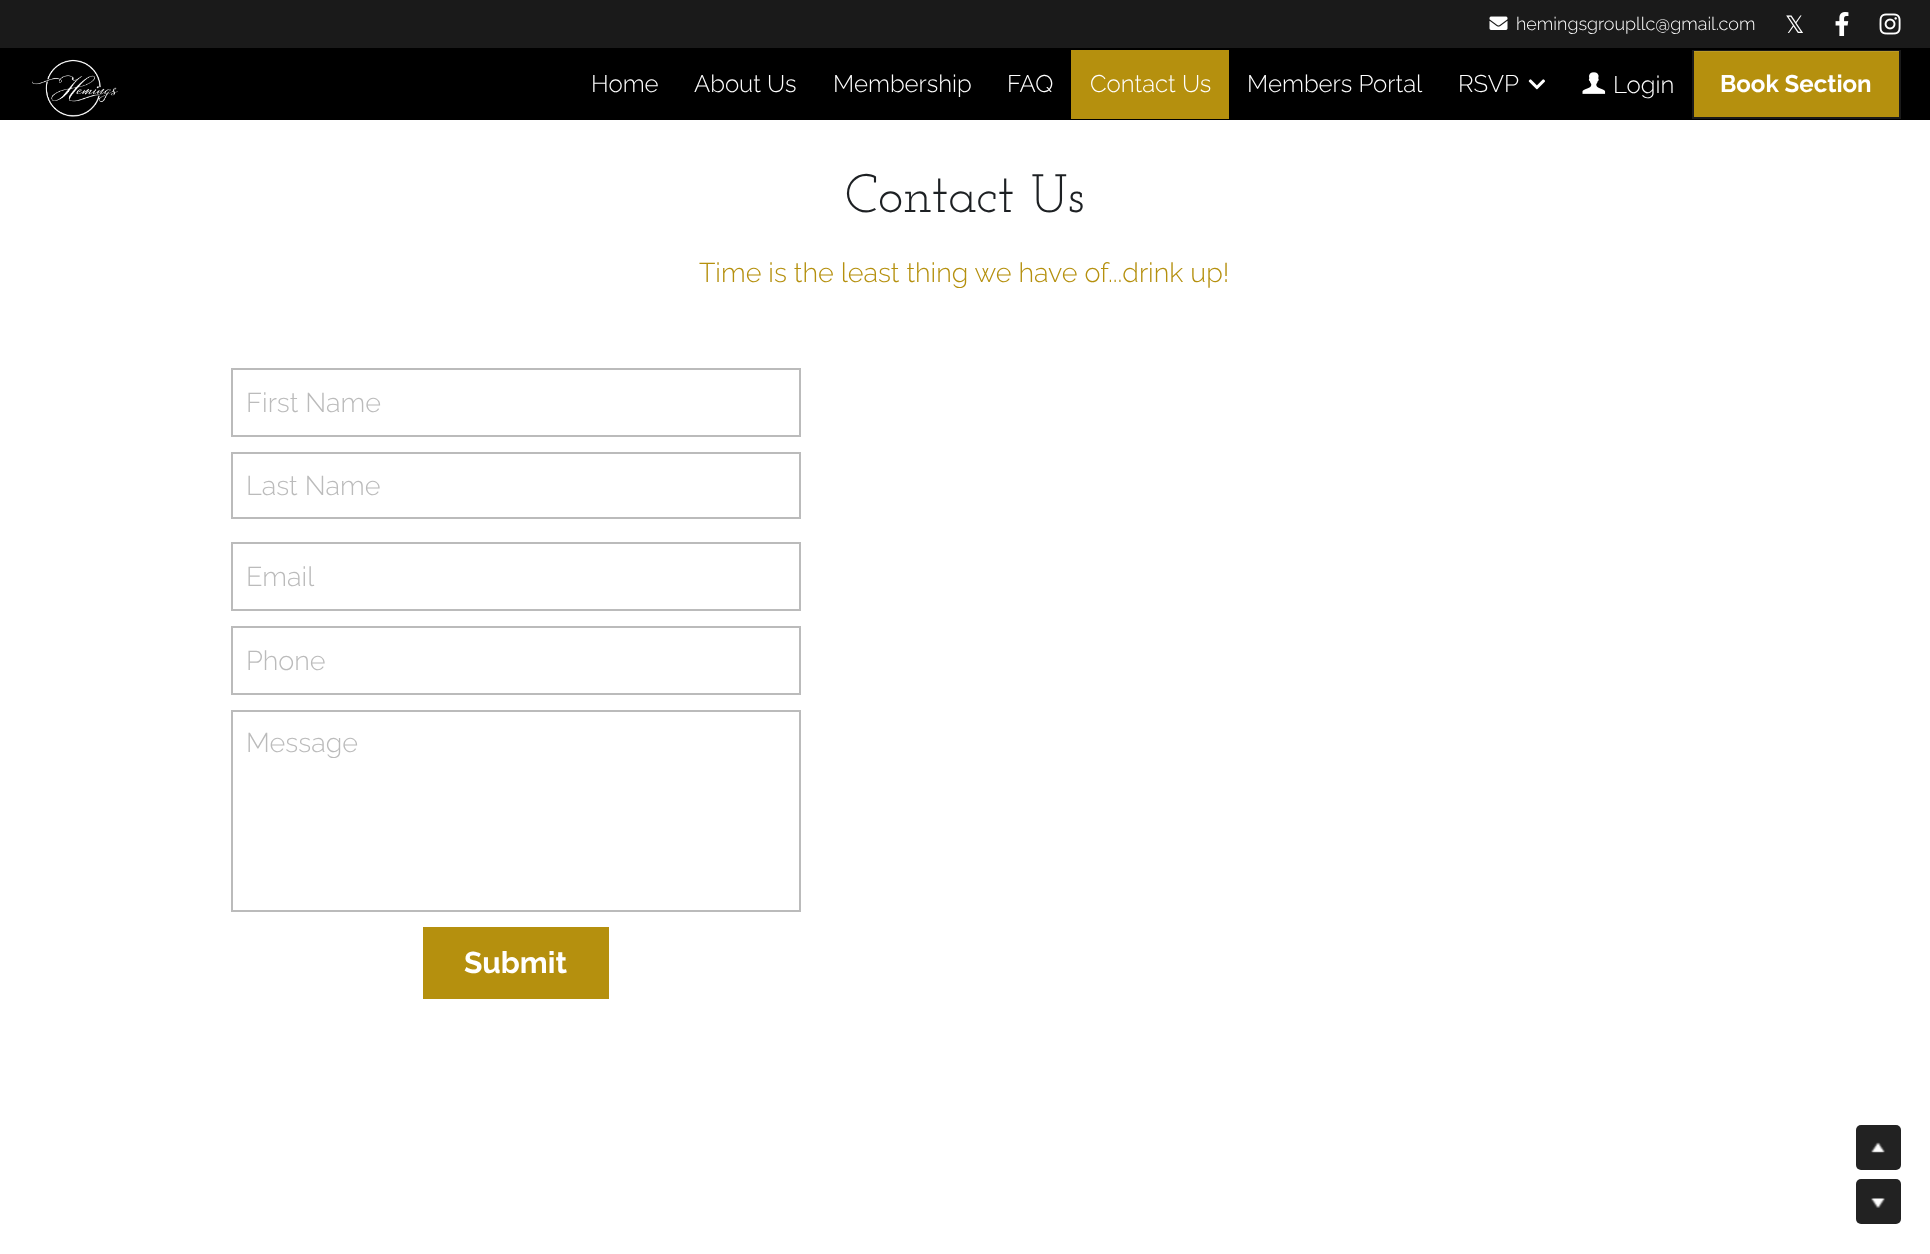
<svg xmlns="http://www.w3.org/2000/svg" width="1930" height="1254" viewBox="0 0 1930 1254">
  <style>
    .t1 { font: 300 18px Raleway; fill: #fff; }
    .t2 { font: 24px DejaVu Sans; fill: #fff; }
    .t3 { font: 300 24px Raleway; fill: #fff; }
    .t4 { font: bold 24px Raleway; fill: #fff; }
    .t5 { font: 54px Josefin Slab; fill: #1d2023; }
    .t6 { font: 300 27px Raleway; fill: #b5900e; }
    .t7 { font: 300 27px Raleway; fill: #bbb; }
    .t8 { font: bold 30px Raleway; fill: #fff; }
  </style>
  <rect width="100%" height="100%" fill="#fff"/>
  <rect x="0" y="48" width="1930" height="72" fill="#000"/>
  <rect x="0" y="0" width="1930" height="48" fill="#1a1a1a"/>
  <image x="1489" y="16" width="19" height="14" href="images/1.png"/>
  <text x="1516" y="30" class="t1">hemingsgroupllc@gmail.com</text>
  <text x="1785" y="33" class="t2">𝕏</text>
  <image x="1835" y="12" width="14" height="24" href="images/2.png"/>
  <image x="1879" y="13" width="22" height="22" href="images/3.png"/>
  <image x="32" y="59" width="86" height="58" href="images/4.png"/>
  <text x="591" y="92" class="t3">Home</text>
  <text x="694" y="92" class="t3">About Us</text>
  <text x="833" y="92" class="t3">Membership</text>
  <text x="1007" y="92" class="t3">FAQ</text>
  <rect x="1071" y="50" width="158" height="69" fill="#b5900e"/>
  <text x="1090" y="92" class="t3">Contact Us</text>
  <text x="1247" y="92" class="t3">Members Portal</text>
  <text x="1458" y="92" class="t3">RSVP</text>
  <image x="1528" y="79" width="17" height="11" href="images/5.png"/>
  <image x="1582" y="72" width="24" height="22" href="images/6.png"/>
  <text x="1613" y="93" class="t3">Login</text>
  <rect x="1694" y="51" width="205" height="66" fill="#b5900e"/>
  <rect x="1693" y="51" width="207" height="67" fill="none" stroke="#ffffff1a" stroke-width="2"/>
  <text x="1720" y="92" class="t4">Book Section</text>
  <text x="845" y="212" class="t5">Contact Us</text>
  <text x="699" y="282" class="t6">Time is the least thing we have of...drink up!</text>
  <rect x="232" y="369" width="568" height="67" fill="none" stroke="#bbb" stroke-width="2"/>
  <text x="246" y="412" class="t7">First Name</text>
  <rect x="232" y="453" width="568" height="65" fill="none" stroke="#bbb" stroke-width="2"/>
  <text x="246" y="495" class="t7">Last Name</text>
  <rect x="232" y="543" width="568" height="67" fill="none" stroke="#bbb" stroke-width="2"/>
  <text x="246" y="586" class="t7">Email</text>
  <rect x="232" y="627" width="568" height="67" fill="none" stroke="#bbb" stroke-width="2"/>
  <text x="246" y="670" class="t7">Phone</text>
  <rect x="232" y="711" width="568" height="200" fill="none" stroke="#bbb" stroke-width="2"/>
  <text x="246" y="752" class="t7">Message</text>
  <rect x="423" y="927" width="186" height="72" fill="#b5900e"/>
  <text x="464" y="973" class="t8">Submit</text>
  <rect x="1856" y="1125" width="45" height="45" rx="5" fill="#222"/>
  <image x="1871" y="1142" width="14" height="11" href="images/7.png"/>
  <rect x="1856" y="1179" width="45" height="45" rx="5" fill="#222"/>
  <image x="1871" y="1198" width="14" height="10" href="images/8.png"/>
</svg>
